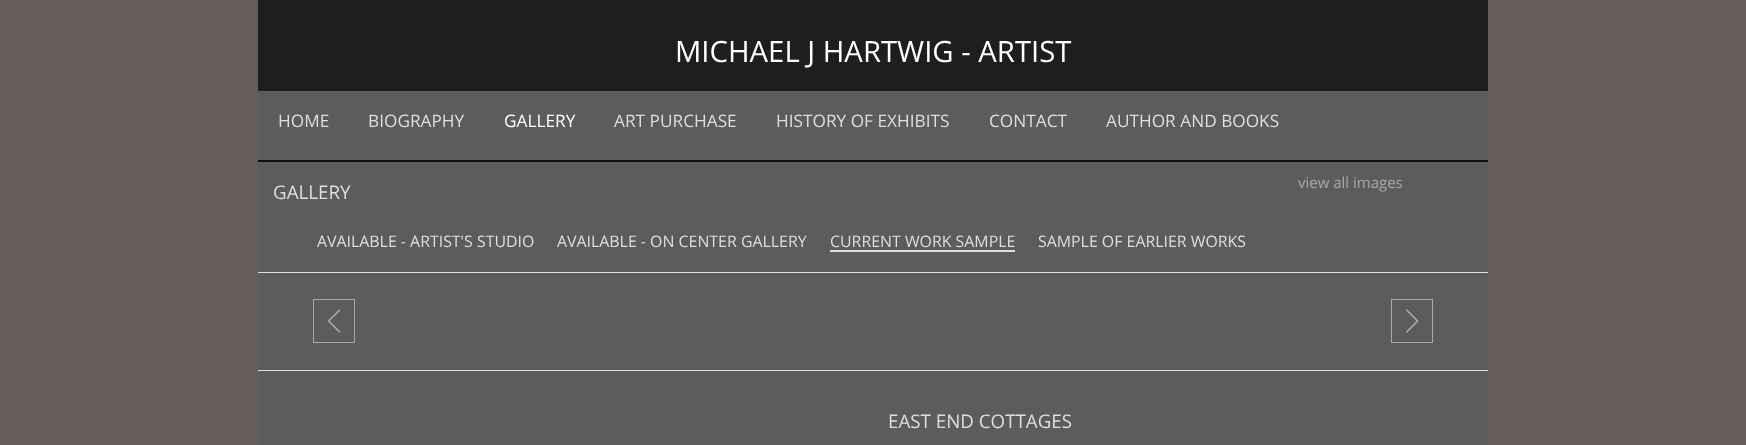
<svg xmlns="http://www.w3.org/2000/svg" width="1746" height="445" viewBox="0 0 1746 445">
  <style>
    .t1 { font: 29.3px Open Sans; fill: #fff; }
    .t2 { font: 17.25px Open Sans; fill: #dfdfe2; }
    .t3 { font: 17.25px Open Sans; fill: #fff; }
    .t4 { font: 18.75px Open Sans; fill: #dfdfe2; }
    .t5 { font: 15.9px Open Sans; fill: #dfdfe2; }
    .t6 { font: 15px Open Sans; fill: #a8a8a8; }
  </style>
  <rect width="100%" height="100%" fill="#675b5b"/>
  <rect x="258" y="0" width="1230" height="91" fill="#1e1e1f"/>
  <text x="675" y="62" class="t1">MICHAEL J HARTWIG - ARTIST</text>
  <rect x="258" y="91" width="1230" height="69" fill="#5c5c5c"/>
  <rect x="258" y="160" width="1230" height="2" fill="#111"/>
  <text x="278" y="127" class="t2">HOME</text>
  <text x="368" y="127" class="t2">BIOGRAPHY</text>
  <text x="504" y="127" class="t3">GALLERY</text>
  <text x="614" y="127" class="t2">ART PURCHASE</text>
  <text x="776" y="127" class="t2">HISTORY OF EXHIBITS</text>
  <text x="989" y="127" class="t2">CONTACT</text>
  <text x="1106" y="127" class="t2">AUTHOR AND BOOKS</text>
  <rect x="258" y="162" width="1230" height="283" fill="#5c5c5c"/>
  <text x="273" y="199" class="t4">GALLERY</text>
  <text x="317" y="247" class="t5">AVAILABLE - ARTIST'S STUDIO</text>
  <text x="557" y="247" class="t5">AVAILABLE - ON CENTER GALLERY</text>
  <rect x="830" y="250" width="185" height="2" fill="#dfdfe2"/>
  <text x="830" y="247" class="t5">CURRENT WORK SAMPLE</text>
  <text x="1038" y="247" class="t5">SAMPLE OF EARLIER WORKS</text>
  <text x="1298" y="188" class="t6">view all images</text>
  <rect x="258" y="272" width="1230" height="1" fill="#dfdfe2"/>
  <rect x="258" y="370" width="1230" height="1" fill="#dfdfe2"/>
  <rect x="313.5" y="299.5" width="41" height="43" fill="none" stroke="#a8a8a8"/>
  <image x="328" y="309" width="13" height="24" href="images/1.png"/>
  <rect x="1391.5" y="299.5" width="41" height="43" fill="none" stroke="#a8a8a8"/>
  <image x="1406" y="309" width="13" height="24" href="images/2.png"/>
  <text x="888" y="428" class="t4">EAST END COTTAGES</text>
</svg>
